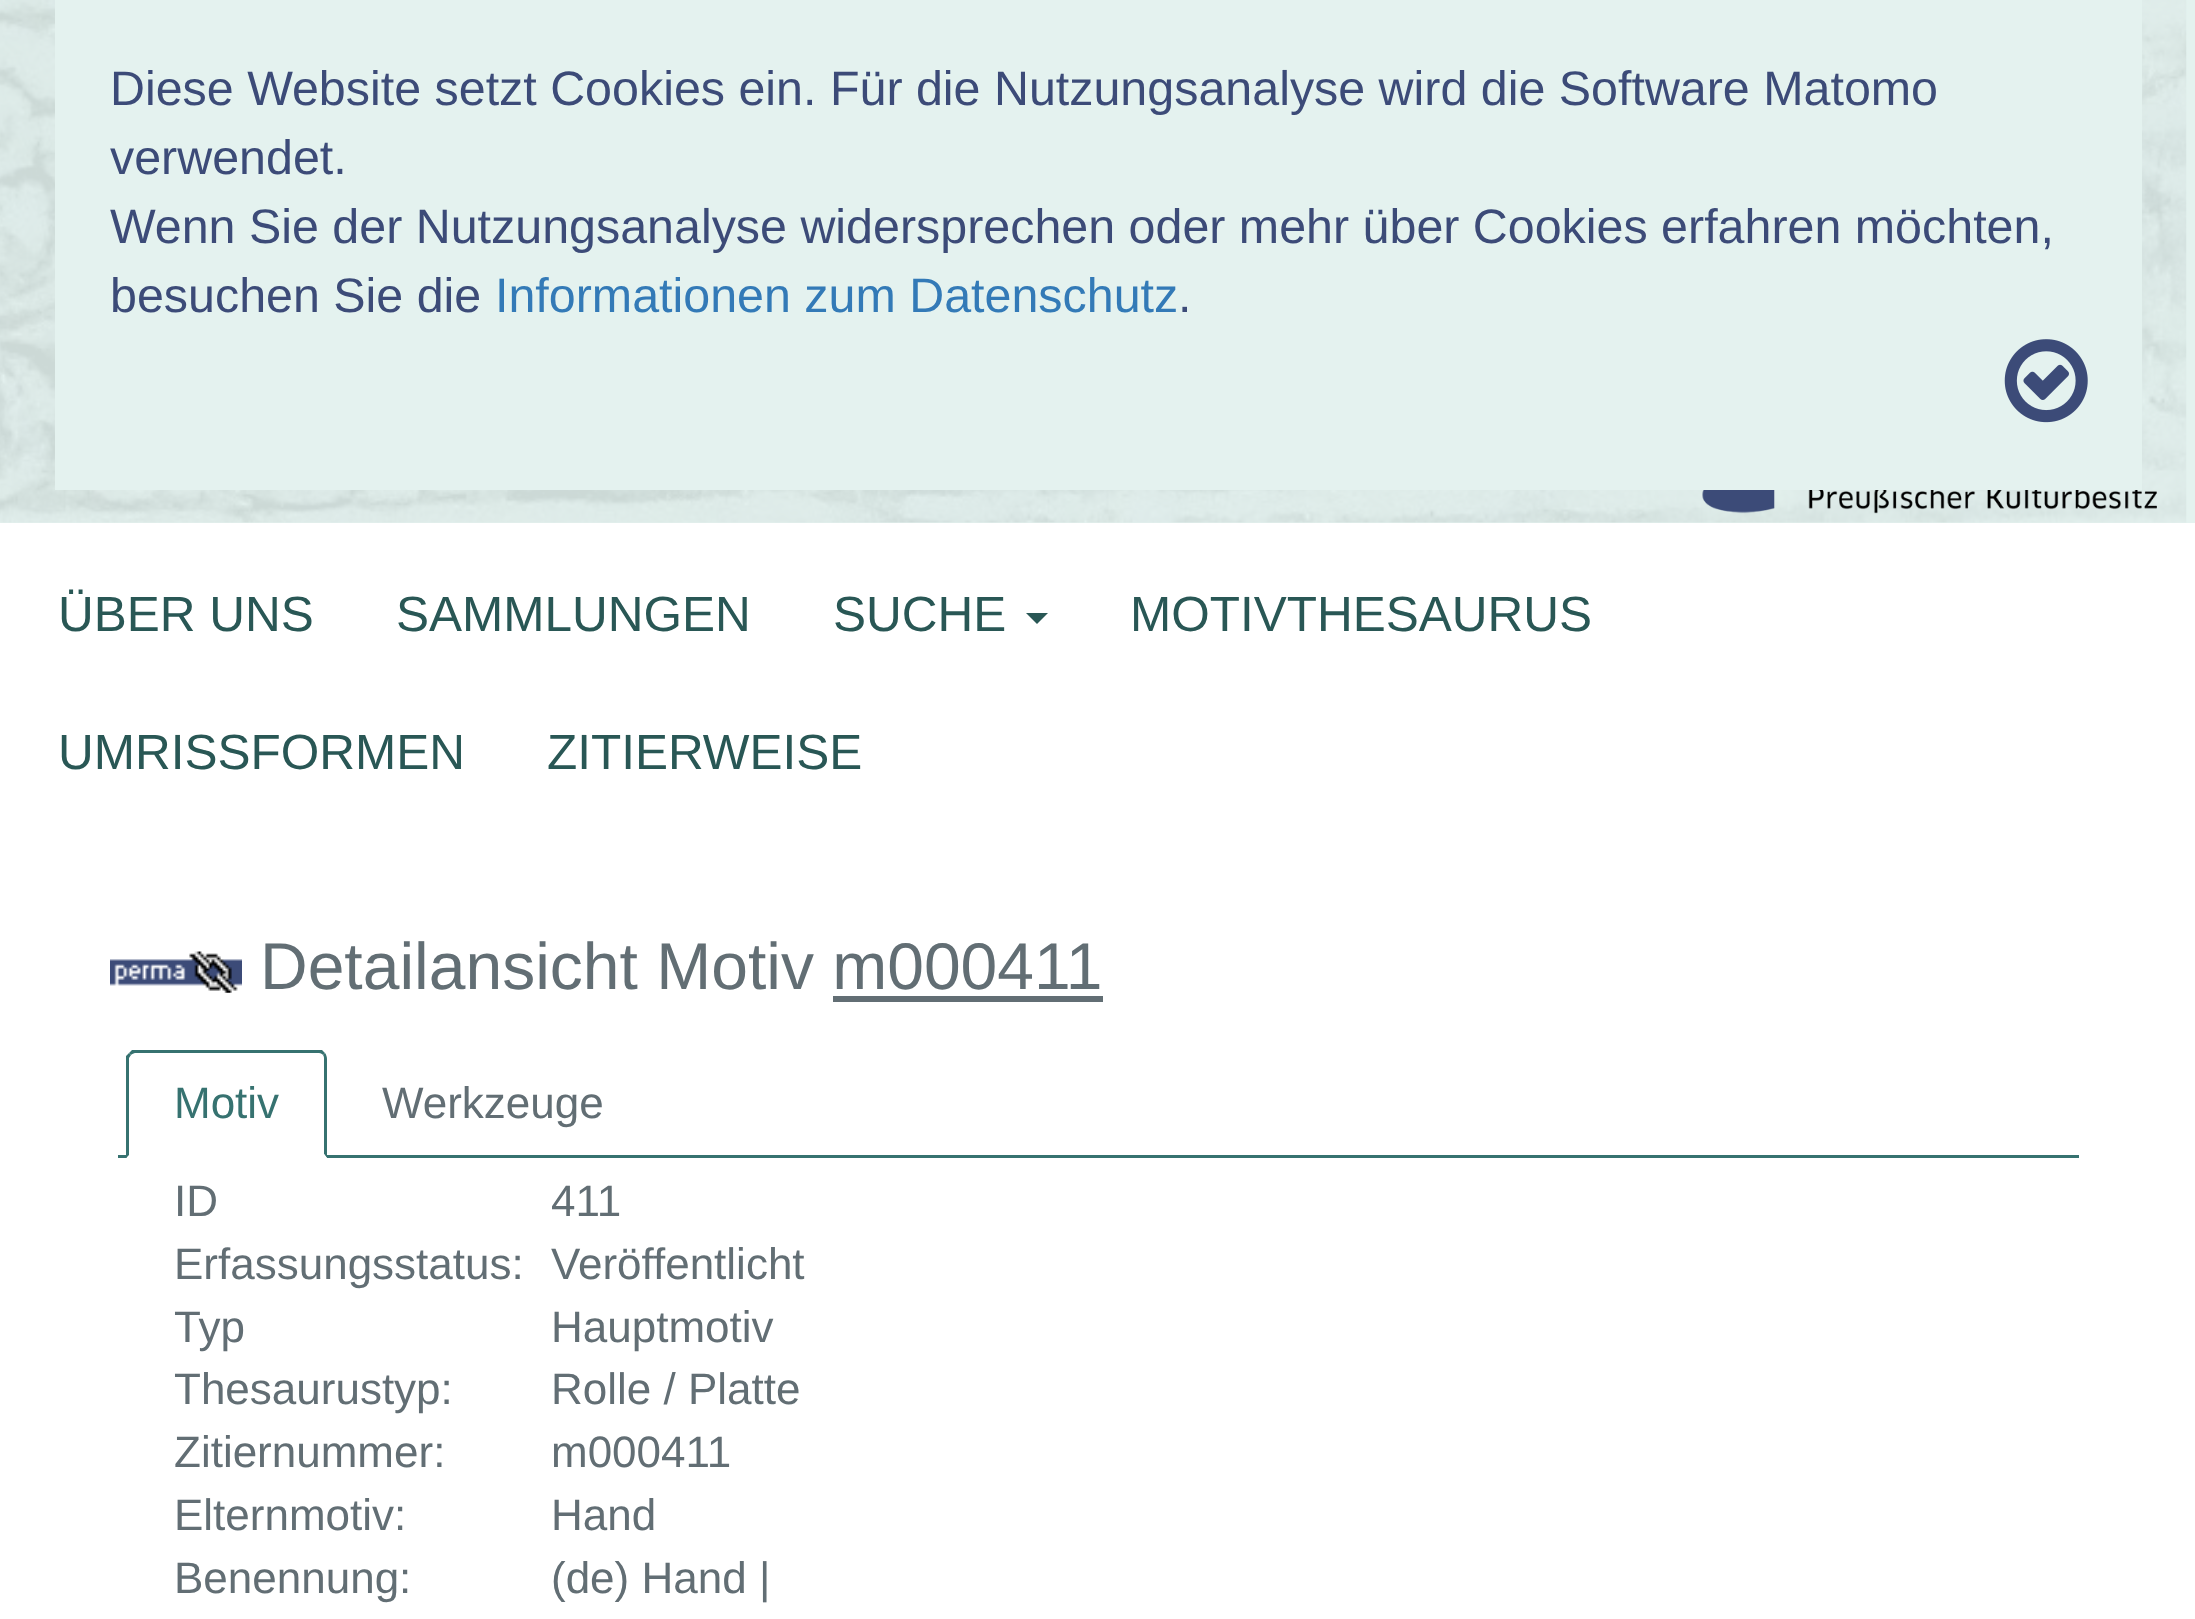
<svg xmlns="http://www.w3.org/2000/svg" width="2195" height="1619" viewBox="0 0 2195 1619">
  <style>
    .t1 { font: 48.4px Liberation Sans; fill: #3c4b78; }
    .t2 { font: 48.4px Liberation Sans; fill: #337ab7; }
    .t3 { font: 49.5px Liberation Sans; fill: #295755; }
    .t4 { font: 66px Liberation Sans; fill: #626e74; }
    .t5 { font: 44px Liberation Sans; fill: #367270; }
    .t6 { font: 44px Liberation Sans; fill: #626e74; }
  </style>
  <rect width="100%" height="100%" fill="#fff"/>
  <rect x="0" y="0" width="2195" height="523" fill="#e4f2ef"/>
  <image x="0" y="0" width="2187" height="523" href="images/1.png"/>
  <rect x="55" y="0" width="2087" height="490" fill="#e4f2ef"/>
  <text x="110" y="105" class="t1">Diese Website setzt Cookies ein. Für die Nutzungsanalyse wird die Software Matomo</text>
  <text x="110" y="174" class="t1">verwendet.</text>
  <text x="110" y="243" class="t1">Wenn Sie der Nutzungsanalyse widersprechen oder mehr über Cookies erfahren möchten,</text>
  <text x="110" y="312" class="t1">besuchen Sie die</text>
  <text x="495" y="312" class="t2">Informationen zum Datenschutz</text>
  <text x="1178" y="312" class="t1">.</text>
  <image x="2004" y="339" width="84" height="84" href="images/2.png"/>
  <image x="1702" y="490" width="455" height="24" href="images/3.png"/>
  <text x="58" y="631" class="t3">ÜBER UNS</text>
  <text x="396" y="631" class="t3">SAMMLUNGEN</text>
  <text x="833" y="631" class="t3">SUCHE</text>
  <path d="M1026 613H1048L1037 624Z" fill="#295755"/>
  <text x="1130" y="631" class="t3">MOTIVTHESAURUS</text>
  <text x="58" y="769" class="t3">UMRISSFORMEN</text>
  <text x="547" y="769" class="t3">ZITIERWEISE</text>
  <image x="110" y="951" width="132" height="42" href="images/4.png"/>
  <text x="260" y="989" class="t4">Detailansicht Motiv m000411</text>
  <rect x="833" y="996" width="270" height="6" fill="#626e74"/>
  <rect x="118" y="1155" width="1961" height="3" fill="#367270"/>
  <path d="M135 1051H319C323.5 1051 327 1054.5 327 1059V1158H127V1059C127 1054.5 130.5 1051 135 1051Z" fill="#fff"/>
  <path d="M135 1053C134 1053 132 1054 131 1055L129 1053L132 1050H322L325 1053L323 1055C322 1054 321 1053 319 1053Z" fill="#367270"/>
  <path d="M325 1053C326 1054 327 1057 327 1059V1158L324 1154V1059C324 1058 324 1056 323 1055Z" fill="#367270"/>
  <path d="M327 1158H126L129 1155H324V1154Z" fill="#fff"/>
  <path d="M126 1158V1056L129 1053L131 1055L129 1058V1155Z" fill="#367270"/>
  <text x="174" y="1118" class="t5">Motiv</text>
  <text x="382" y="1118" class="t6">Werkzeuge</text>
  <text x="174" y="1216" class="t6">ID</text>
  <text x="551" y="1216" class="t6">411</text>
  <text x="174" y="1279" class="t6">Erfassungsstatus:</text>
  <text x="551" y="1279" class="t6">Veröffentlicht</text>
  <text x="174" y="1342" class="t6">Typ</text>
  <text x="551" y="1342" class="t6">Hauptmotiv</text>
  <text x="174" y="1404" class="t6">Thesaurustyp:</text>
  <text x="551" y="1404" class="t6">Rolle / Platte</text>
  <text x="174" y="1467" class="t6">Zitiernummer:</text>
  <text x="551" y="1467" class="t6">m000411</text>
  <text x="174" y="1530" class="t6">Elternmotiv:</text>
  <text x="551" y="1530" class="t6">Hand</text>
  <text x="174" y="1593" class="t6">Benennung:</text>
  <text x="551" y="1593" class="t6">(de) Hand |</text>
</svg>
